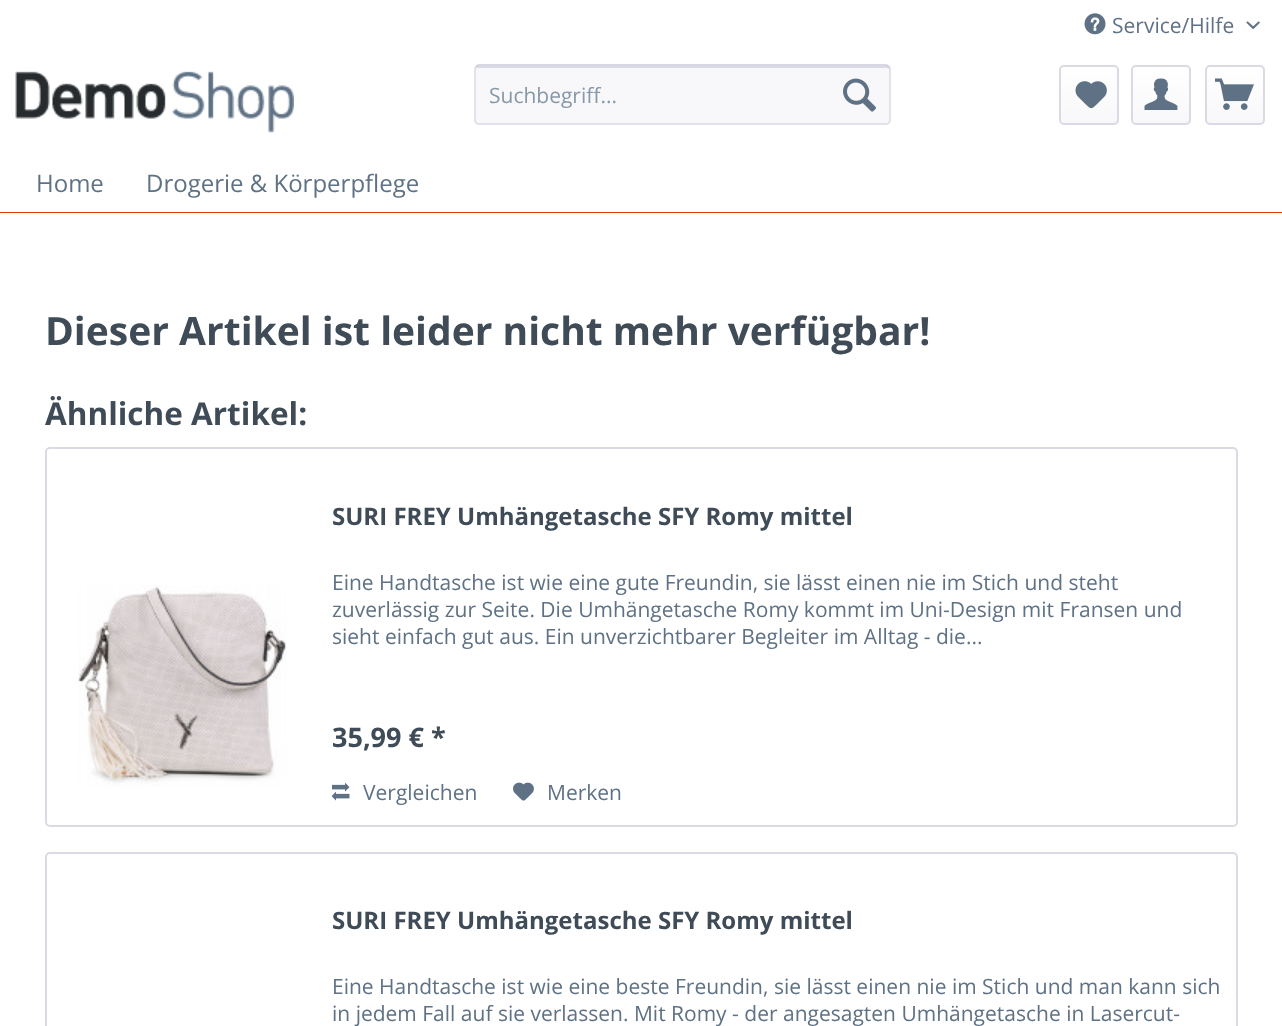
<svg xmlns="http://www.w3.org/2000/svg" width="1282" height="1026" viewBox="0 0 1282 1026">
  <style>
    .t1 { font: 21px Open Sans; fill: #5f7285; }
    .t2 { font: 21px Open Sans; fill: #8798a9; }
    .t3 { font: 24px Open Sans; fill: #5f7285; }
    .t4 { font: bold 39px Open Sans; fill: #3f4c58; }
    .t5 { font: bold 31.5px Open Sans; fill: #3f4c58; }
    .t6 { font: bold 24px Open Sans; fill: #3f4c58; }
    .t7 { font: bold 27px Open Sans; fill: #3f4c58; }
  </style>
  <defs>
    <linearGradient id="g1" gradientUnits="userSpaceOnUse" x1="1089" y1="66" x2="1089" y2="123"><stop offset="0" stop-color="#fff"/><stop offset="1" stop-color="#f8f8fa"/></linearGradient>
    <linearGradient id="g2" gradientUnits="userSpaceOnUse" x1="1161" y1="66" x2="1161" y2="123"><stop offset="0" stop-color="#fff"/><stop offset="1" stop-color="#f8f8fa"/></linearGradient>
    <linearGradient id="g3" gradientUnits="userSpaceOnUse" x1="1235" y1="66" x2="1235" y2="123"><stop offset="0" stop-color="#fff"/><stop offset="1" stop-color="#f8f8fa"/></linearGradient>
  </defs>
  <rect width="100%" height="100%" fill="#fff"/>
  <image x="1084" y="13" width="22" height="22" href="images/1.png"/>
  <text x="1112" y="33" class="t1">Service/Hilfe</text>
  <image x="1246" y="21" width="14" height="8" href="images/2.png"/>
  <image x="15" y="71" width="279" height="62" href="images/3.png"/>
  <rect x="474" y="65" width="417" height="60" rx="5" fill="#f8f8fa"/>
  <path d="M478 68H886C888 68 890 69 890 70C890 68 889 66 887 66H479C477 66 476 68 476 70C476 69 477 68 478 68Z" fill="#dadae5"/>
  <path d="M476 66.5L478.5 65H886.5L889 66.5" fill="none" stroke="#cbcbdb" stroke-width="1.5"/>
  <path d="M889 66.5C890 67 890 68 890 69V120C890 121 890 122 889 122.5C888.5 123.5 887.5 124 886.5 124H478.5C477.5 124 476.5 123.5 476 122.5C475 122 475 121 475 120V69C475 68 475 67 476 66.5" fill="none" stroke="#dadae5" stroke-width="1.5"/>
  <text x="489" y="103" class="t2">Suchbegriff...</text>
  <image x="843" y="78" width="33" height="34" href="images/4.png"/>
  <rect x="1061" y="66" width="57" height="57" rx="3" fill="url(#g1)"/>
  <rect x="1060" y="66" width="58" height="58" rx="4" fill="none" stroke="#dadae5" stroke-width="2"/>
  <image x="1075" y="81" width="32" height="28" href="images/5.png"/>
  <rect x="1133" y="66" width="57" height="57" rx="3" fill="url(#g2)"/>
  <rect x="1132" y="66" width="58" height="58" rx="4" fill="none" stroke="#dadae5" stroke-width="2"/>
  <image x="1144" y="78" width="34" height="32" href="images/6.png"/>
  <rect x="1206" y="66" width="57" height="57" rx="3" fill="url(#g3)"/>
  <rect x="1206" y="66" width="58" height="58" rx="4" fill="none" stroke="#dadae5" stroke-width="2"/>
  <image x="1215" y="78" width="39" height="32" href="images/7.png"/>
  <rect x="0" y="212" width="1282" height="1" fill="#d9400b"/>
  <text x="36" y="192" class="t3">Home</text>
  <text x="146" y="192" class="t3">Drogerie &amp; Körperpflege</text>
  <text x="45" y="345" class="t4">Dieser Artikel ist leider nicht mehr verfügbar!</text>
  <text x="45" y="425" class="t5">Ähnliche Artikel:</text>
  <rect x="46" y="448" width="1191" height="378" rx="4" fill="none" stroke="#dadae5" stroke-width="2"/>
  <text x="332" y="525" class="t6">SURI FREY Umhängetasche SFY Romy mittel</text>
  <image x="78" y="585" width="209" height="202" href="images/8.png"/>
  <text x="332" y="590" class="t1">Eine Handtasche ist wie eine gute Freundin, sie lässt einen nie im Stich und steht</text>
  <text x="332" y="617" class="t1">zuverlässig zur Seite. Die Umhängetasche Romy kommt im Uni-Design mit Fransen und</text>
  <text x="332" y="644" class="t1">sieht einfach gut aus. Ein unverzichtbarer Begleiter im Alltag - die...</text>
  <text x="332" y="747" class="t7">35,99 € *</text>
  <image x="332" y="782" width="18" height="19" href="images/9.png"/>
  <text x="363" y="800" class="t1">Vergleichen</text>
  <image x="513" y="782" width="21" height="19" href="images/10.png"/>
  <text x="547" y="800" class="t1">Merken</text>
  <rect x="46" y="853" width="1191" height="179" rx="4" fill="none" stroke="#dadae5" stroke-width="2"/>
  <text x="332" y="929" class="t6">SURI FREY Umhängetasche SFY Romy mittel</text>
  <text x="332" y="994" class="t1">Eine Handtasche ist wie eine beste Freundin, sie lässt einen nie im Stich und man kann sich</text>
  <text x="332" y="1021" class="t1">in jedem Fall auf sie verlassen. Mit Romy - der angesagten Umhängetasche in Lasercut-</text>
</svg>
